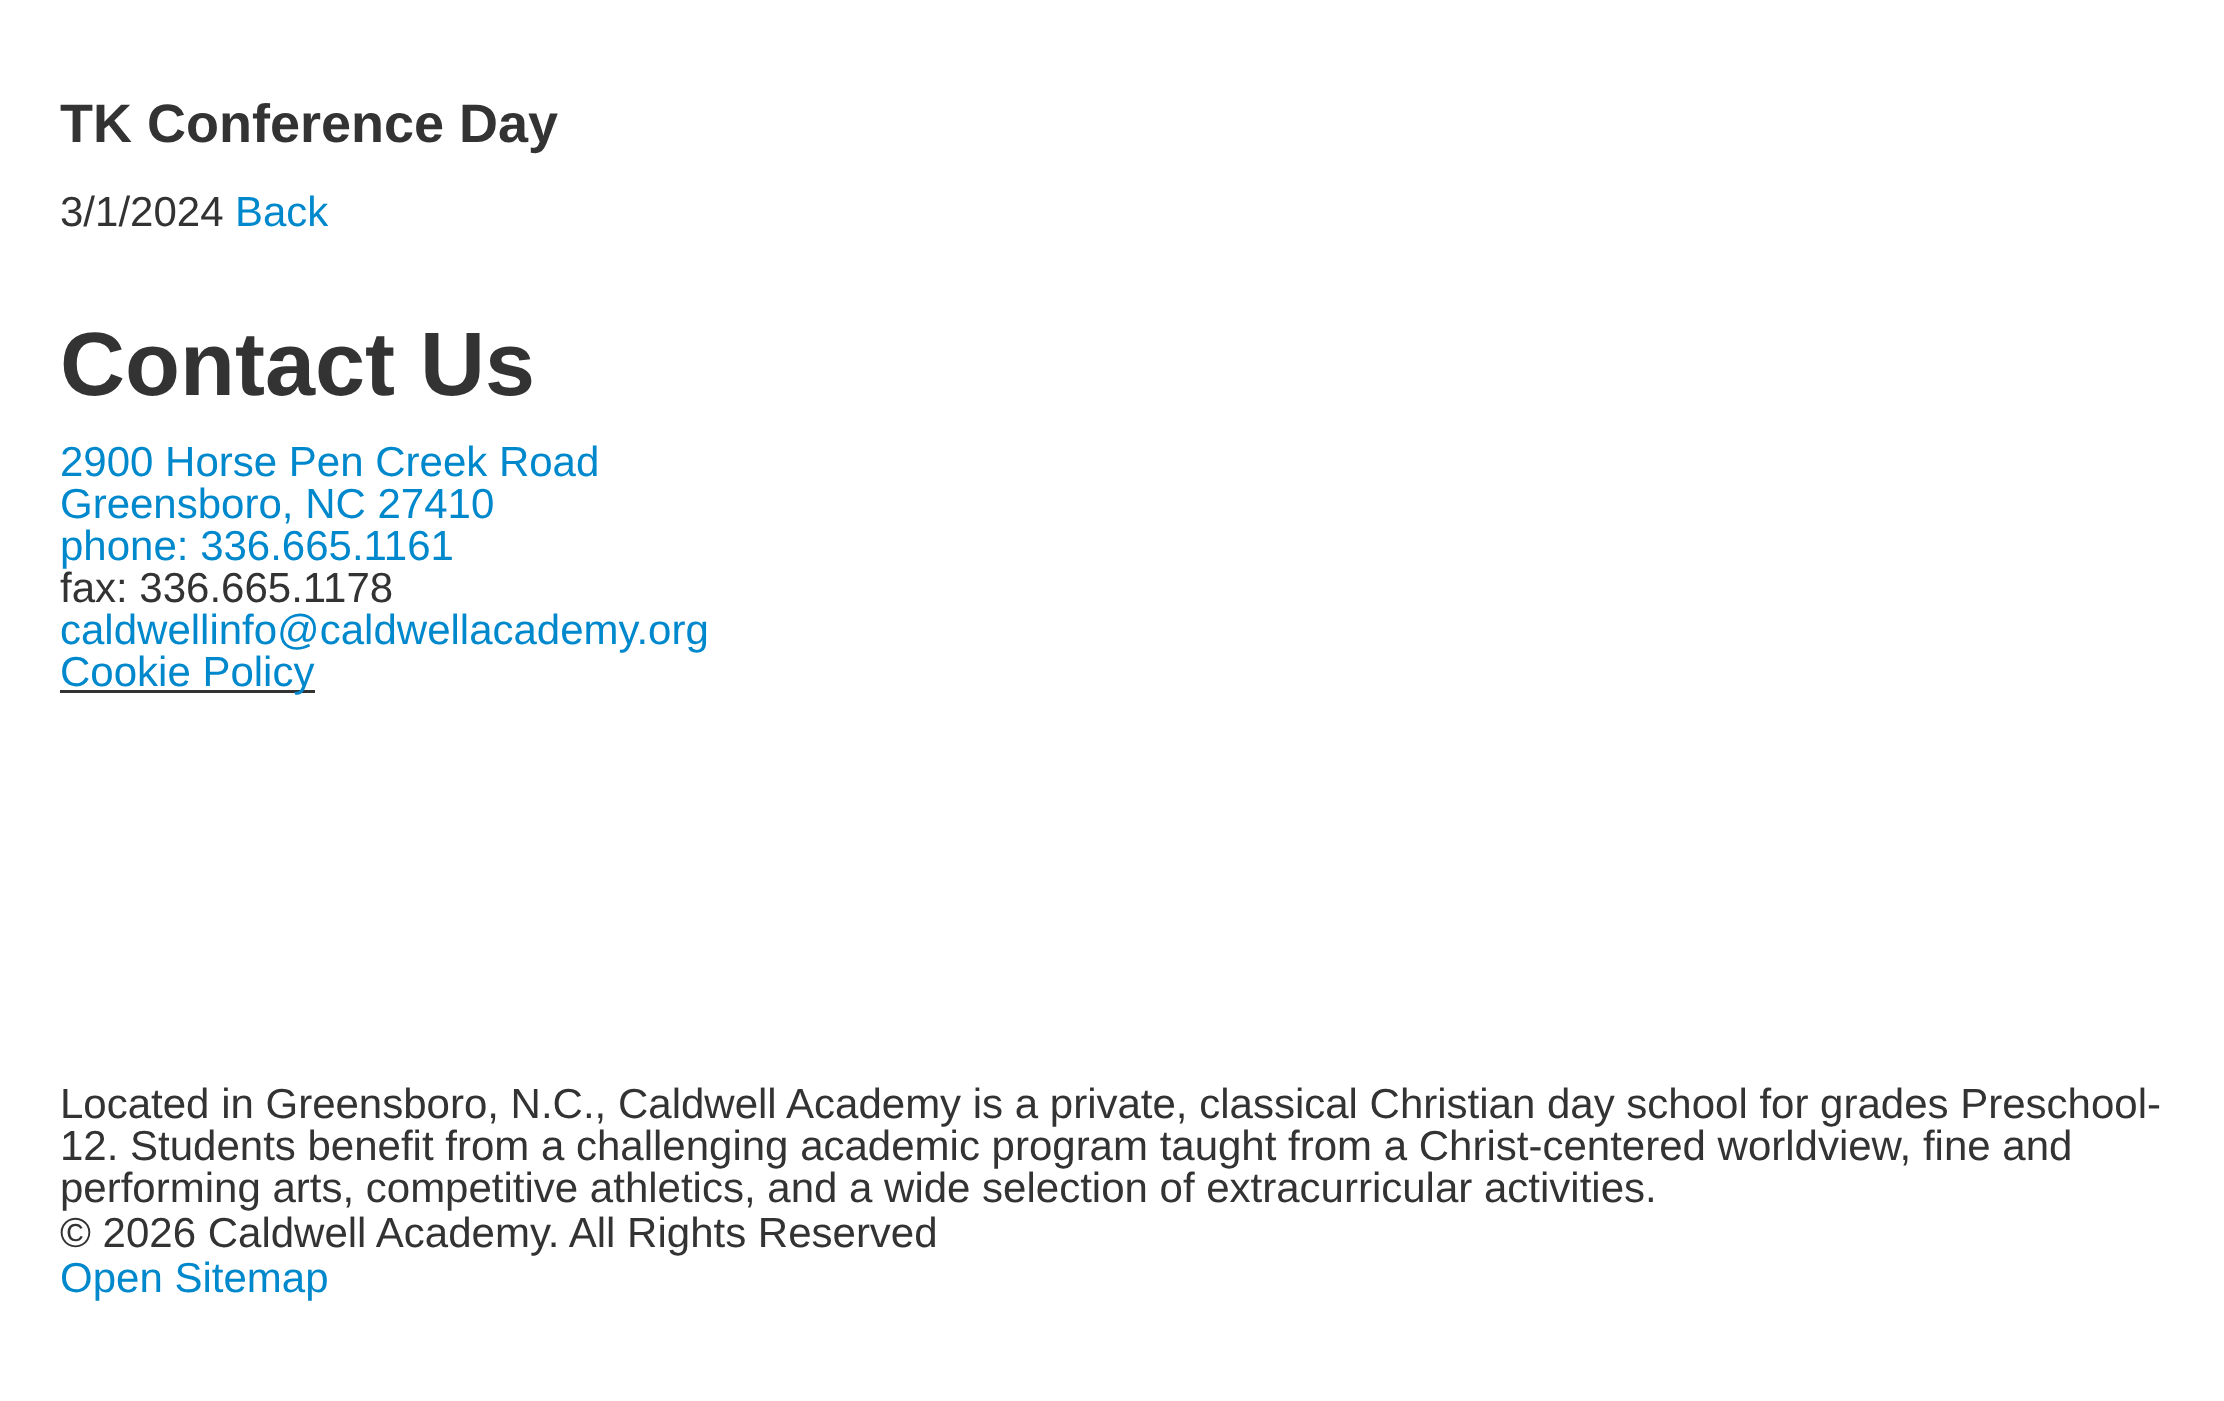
<svg xmlns="http://www.w3.org/2000/svg" width="2224" height="1401" viewBox="0 0 2224 1401">
  <style>
    .t1 { font: bold 54px Liberation Sans; fill: #333; }
    .t2 { font: 42px Liberation Sans; fill: #333; }
    .t3 { font: 42px Liberation Sans; fill: #08c; }
    .t4 { font: bold 90px Liberation Sans; fill: #333; }
  </style>
  <rect width="100%" height="100%" fill="#fff"/>
  <text x="60" y="142" class="t1">TK Conference Day</text>
  <text x="60" y="226" class="t2">3/1/2024</text>
  <text x="235" y="226" class="t3">Back</text>
  <text x="60" y="395" class="t4">Contact Us</text>
  <text x="60" y="476" class="t3">2900 Horse Pen Creek Road</text>
  <text x="60" y="518" class="t3">Greensboro, NC 27410</text>
  <text x="60" y="560" class="t3">phone: 336.665.1161</text>
  <text x="60" y="602" class="t2">fax: 336.665.1178</text>
  <text x="60" y="644" class="t3">caldwellinfo@caldwellacademy.org</text>
  <rect x="60" y="690" width="255" height="3" fill="#333"/>
  <text x="60" y="686" class="t3">Cookie Policy</text>
  <text x="60" y="1118" class="t2">Located in Greensboro, N.C., Caldwell Academy is a private, classical Christian day school for grades Preschool-</text>
  <text x="60" y="1160" class="t2">12. Students benefit from a challenging academic program taught from a Christ-centered worldview, fine and</text>
  <text x="60" y="1202" class="t2">performing arts, competitive athletics, and a wide selection of extracurricular activities.</text>
  <text x="60" y="1247" class="t2">© 2026 Caldwell Academy. All Rights Reserved</text>
  <text x="60" y="1292" class="t3">Open Sitemap</text>
</svg>
